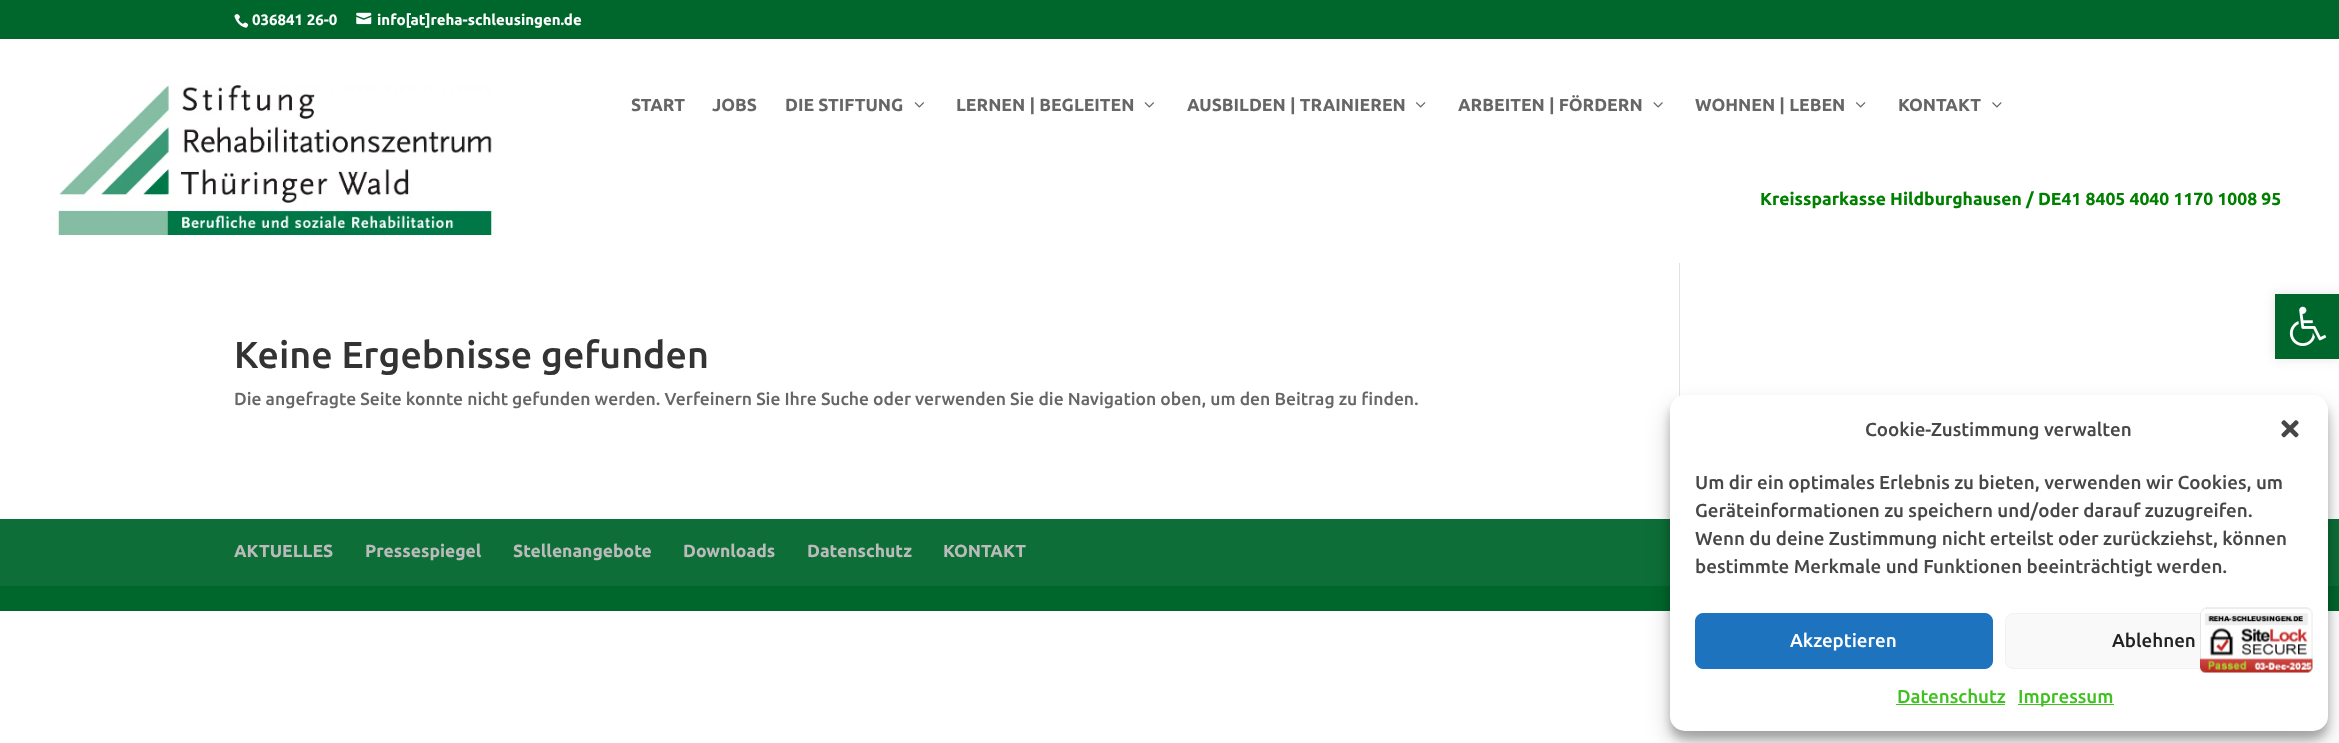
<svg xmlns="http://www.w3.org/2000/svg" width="2339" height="743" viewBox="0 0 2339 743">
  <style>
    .t1 { font: bold 15px Ubuntu; fill: #fff; }
    .t2 { font: bold 17.5px Ubuntu; fill: #666; }
    .t3 { font: bold 17.5px Ubuntu; fill: #008000; }
    .t4 { font: 500 37.5px Ubuntu; fill: #333; }
    .t5 { font: 500 17.5px Ubuntu; fill: #666; }
    .t6 { font: bold 17.5px Ubuntu; fill: #bbb; }
    .t7 { font: 500 18.75px Ubuntu; fill: #474747; }
    .t8 { font: 500 18.75px Ubuntu; fill: #fff; }
    .t9 { font: 500 18.75px Ubuntu; fill: #222; }
    .t10 { font: 500 18.75px Ubuntu; fill: #3fc11f; }
  </style>
  <rect width="100%" height="100%" fill="#fff"/>
  <rect x="0" y="0" width="2339" height="39" fill="#00672c"/>
  <image x="234" y="14" width="15" height="14" href="images/1.png"/>
  <text x="252" y="25" class="t1">036841 26-0</text>
  <image x="356" y="12" width="16" height="13" href="images/2.png"/>
  <text x="377" y="25" class="t1">info[at]reha-schleusingen.de</text>
  <image x="58" y="85" width="434" height="150" href="images/3.png"/>
  <text x="631" y="111" class="t2">START</text>
  <text x="712" y="111" class="t2">JOBS</text>
  <text x="785" y="111" class="t2">DIE STIFTUNG</text>
  <image x="914" y="102" width="10" height="6" href="images/4.png"/>
  <text x="956" y="111" class="t2">LERNEN | BEGLEITEN</text>
  <image x="1144" y="102" width="10" height="6" href="images/4.png"/>
  <text x="1187" y="111" class="t2">AUSBILDEN | TRAINIEREN</text>
  <image x="1416" y="102" width="10" height="6" href="images/5.png"/>
  <text x="1458" y="111" class="t2">ARBEITEN | FÖRDERN</text>
  <image x="1653" y="102" width="10" height="6" href="images/6.png"/>
  <text x="1695" y="111" class="t2">WOHNEN | LEBEN</text>
  <image x="1856" y="102" width="10" height="6" href="images/5.png"/>
  <text x="1898" y="111" class="t2">KONTAKT</text>
  <image x="1992" y="102" width="10" height="6" href="images/7.png"/>
  <text x="1760" y="205" class="t3">Kreissparkasse Hildburghausen / DE41 8405 4040 1170 1008 95</text>
  <text x="234" y="368" class="t4">Keine Ergebnisse gefunden</text>
  <text x="234" y="405" class="t5">Die angefragte Seite konnte nicht gefunden werden. Verfeinern Sie Ihre Suche oder verwenden Sie die Navigation oben, um den Beitrag zu finden.</text>
  <rect x="1679" y="263" width="1" height="134" fill="#e2e2e2"/>
  <rect x="0" y="586" width="2339" height="25" fill="#00672c"/>
  <rect x="0" y="519" width="2339" height="67" fill="#0d6f37"/>
  <text x="234" y="557" class="t6">AKTUELLES</text>
  <text x="365" y="557" class="t6">Pressespiegel</text>
  <text x="513" y="557" class="t6">Stellenangebote</text>
  <text x="683" y="557" class="t6">Downloads</text>
  <text x="807" y="557" class="t6">Datenschutz</text>
  <text x="943" y="557" class="t6">KONTAKT</text>
  <rect x="2275" y="294" width="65" height="65" fill="#0000001a" filter="blur(6px)"/>
  <rect x="2275" y="294" width="64" height="65" fill="#00672c"/>
  <image x="2289" y="306" width="38" height="40" href="images/8.png"/>
  <rect x="1670" y="403" width="658" height="336" rx="15" fill="#0000003b" filter="blur(4px)"/>
  <rect x="1670" y="408" width="658" height="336" rx="15" fill="#00000030" filter="blur(12.5px)"/>
  <rect x="1670" y="395" width="658" height="336" rx="15" fill="#fff"/>
  <text x="1865" y="436" class="t7">Cookie-Zustimmung verwalten</text>
  <image x="2281" y="420" width="18" height="18" href="images/9.png"/>
  <text x="1695" y="489" class="t7">Um dir ein optimales Erlebnis zu bieten, verwenden wir Cookies, um</text>
  <text x="1695" y="517" class="t7">Geräteinformationen zu speichern und/oder darauf zuzugreifen.</text>
  <text x="1695" y="545" class="t7">Wenn du deine Zustimmung nicht erteilst oder zurückziehst, können</text>
  <text x="1695" y="573" class="t7">bestimmte Merkmale und Funktionen beeinträchtigt werden.</text>
  <rect x="1695.5" y="613.5" width="297" height="55" rx="7.5" fill="#1e73be" stroke="#1e73be"/>
  <text x="1790" y="647" class="t8">Akzeptieren</text>
  <rect x="2005.5" y="613.5" width="297" height="55" rx="7.5" fill="#f9f9f9" stroke="#f2f2f2"/>
  <text x="2112" y="647" class="t9">Ablehnen</text>
  <text x="1897" y="703" class="t10">Datenschutz</text>
  <rect x="1896" y="704" width="109" height="1" fill="#3fc11f"/>
  <rect x="2018" y="704" width="96" height="1" fill="#3fc11f"/>
  <text x="2018" y="703" class="t10">Impressum</text>
  <rect x="2200" y="608" width="113" height="65" rx="5" fill="#fff"/>
  <image x="2200" y="607" width="113" height="66" href="images/10.png"/>
</svg>
